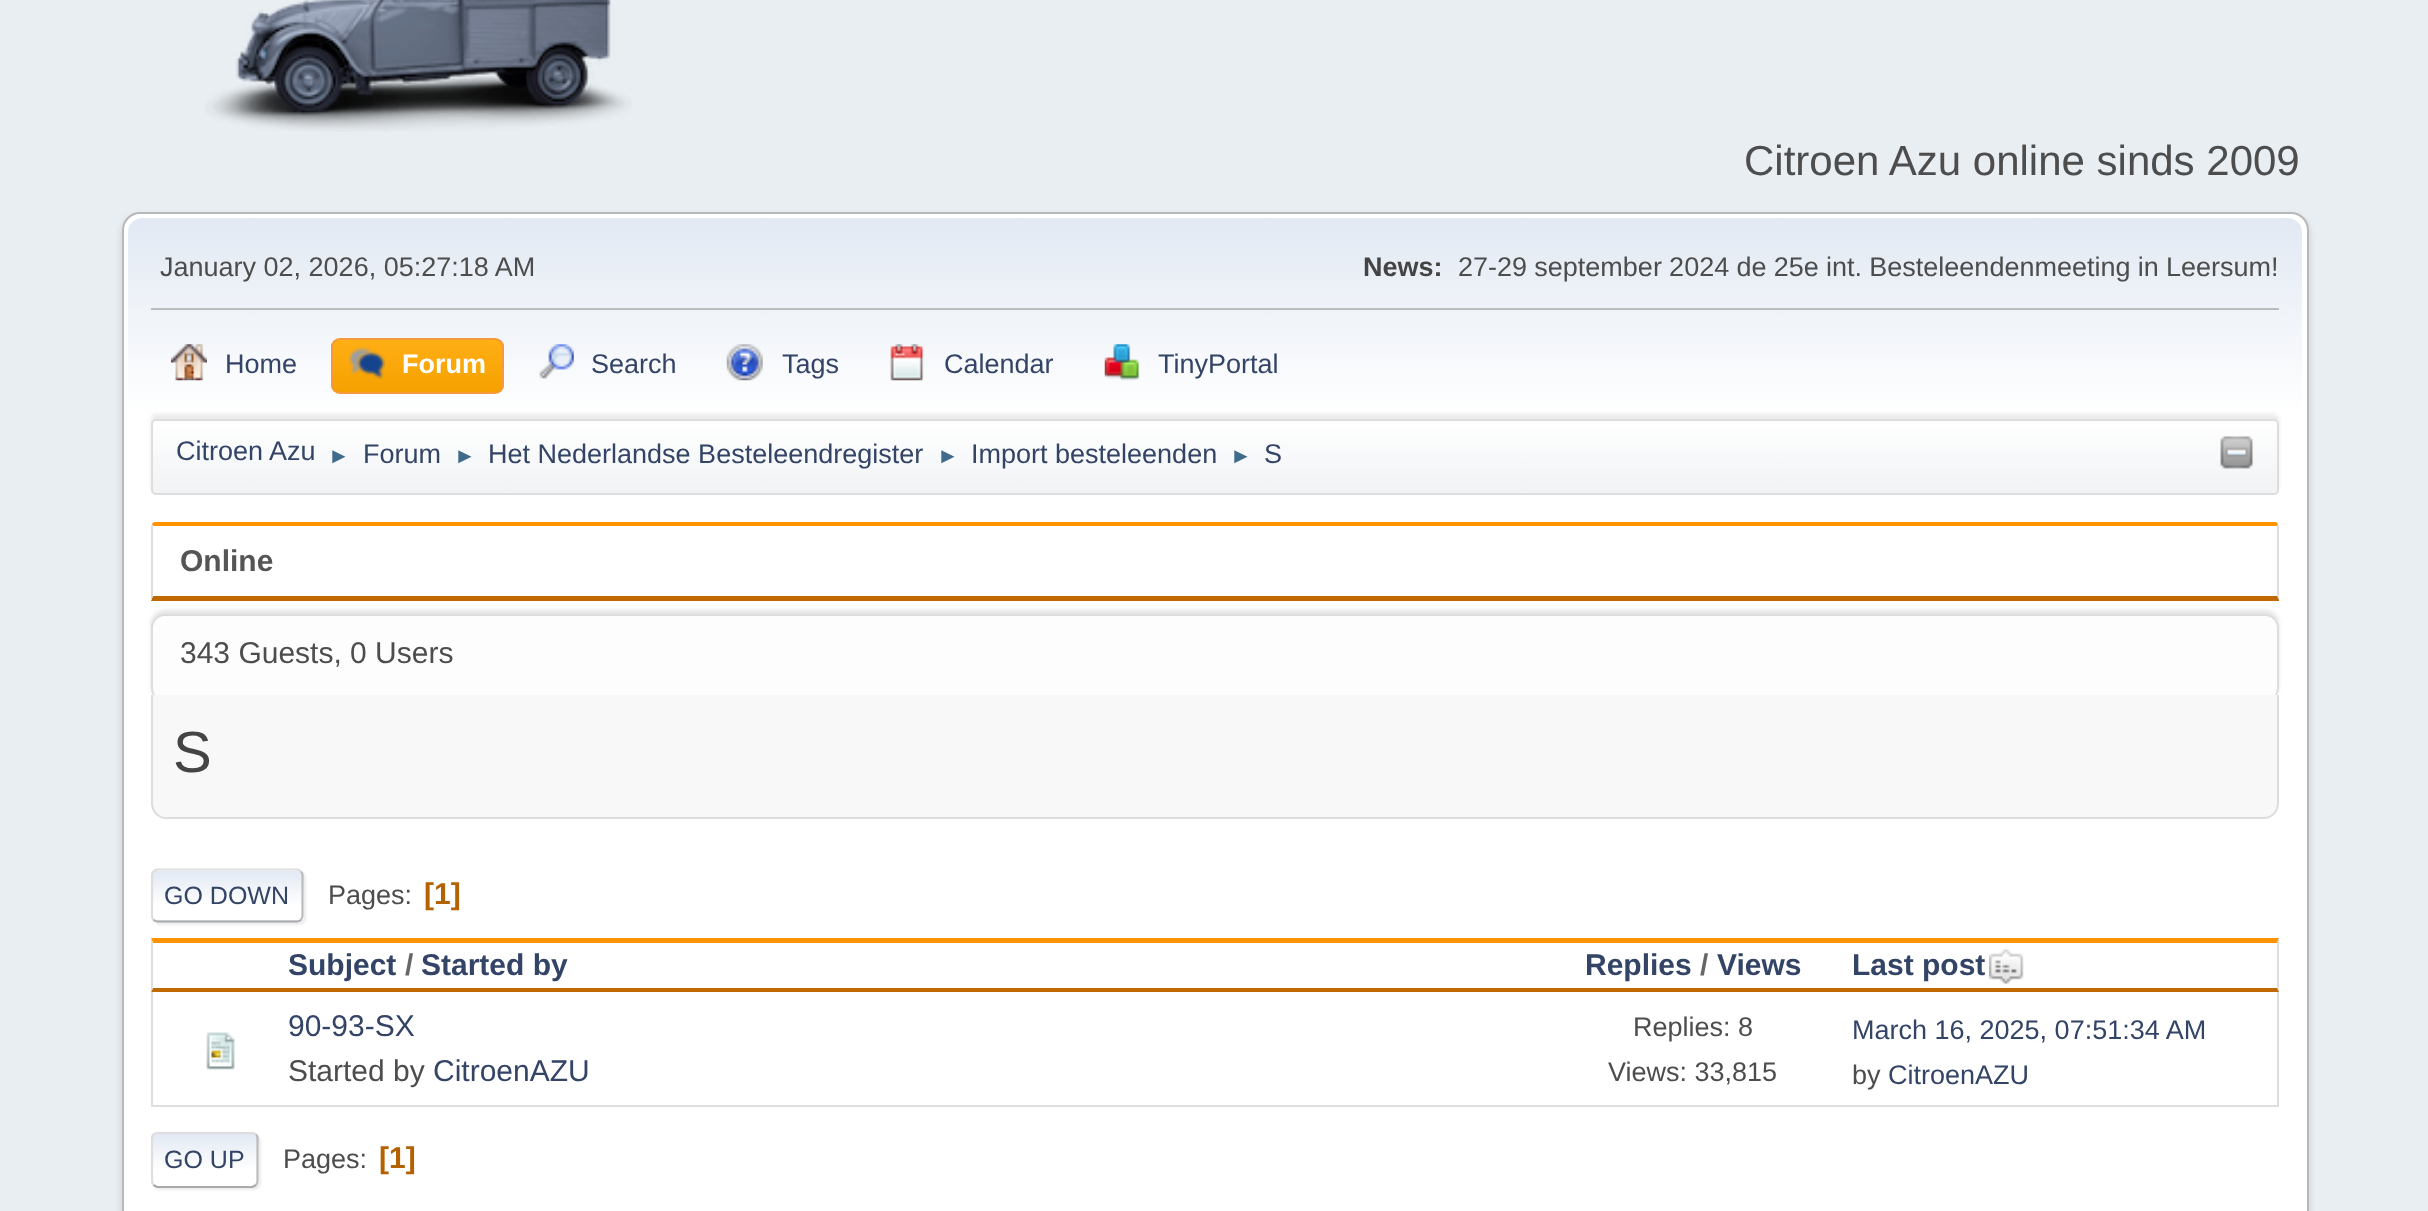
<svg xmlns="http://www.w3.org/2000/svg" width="2428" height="1211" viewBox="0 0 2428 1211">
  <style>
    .t1 { font: 42px Liberation Sans; fill: #4d4d4d; }
    .t2 { font: 27px Liberation Sans; fill: #4d4d4d; }
    .t3 { font: bold 27px Liberation Sans; fill: #444; }
    .t4 { font: 27px Liberation Sans; fill: #346; }
    .t5 { font: bold 27px Liberation Sans; fill: #fff; }
    .t6 { font: 22px Liberation Sans; fill: #3f6b8c; }
    .t7 { font: bold 30px Liberation Sans; fill: #555; }
    .t8 { font: 30px Liberation Sans; fill: #4d4d4d; }
    .t9 { font: 58px Liberation Sans; fill: #444; }
    .t10 { font: 25px Liberation Sans; fill: #346; }
    .t11 { font: bold 30px Liberation Sans; fill: #b46100; }
    .t12 { font: bold 30px Liberation Sans; fill: #346; }
    .t13 { font: bold 30px Liberation Sans; fill: #666; }
    .t14 { font: 30px Liberation Sans; fill: #346; }
  </style>
  <defs>
    <linearGradient id="g1" gradientUnits="userSpaceOnUse" x1="1215" y1="218" x2="1215" y2="500"><stop offset="0" stop-color="#e2e9f3"/><stop offset="0.7" stop-color="#fff"/></linearGradient>
    <clipPath id="clip1"><rect x="331" y="338" width="173" height="56" rx="9"/></clipPath>
    <linearGradient id="g2" gradientUnits="userSpaceOnUse" x1="417" y1="340" x2="417" y2="392"><stop offset="0" stop-color="#ffae14"/><stop offset="1" stop-color="#f5a100"/></linearGradient>
    <clipPath id="clip2"><rect x="151" y="419" width="2128" height="76" rx="5"/></clipPath>
    <linearGradient id="g3" gradientUnits="userSpaceOnUse" x1="1215" y1="421" x2="1215" y2="493"><stop offset="0" stop-color="#fff"/><stop offset="0.95" stop-color="#f1f3f5"/></linearGradient>
    <clipPath id="clip3"><rect x="151" y="869" width="153" height="54" rx="7"/></clipPath>
    <linearGradient id="g4" gradientUnits="userSpaceOnUse" x1="227" y1="871" x2="227" y2="920"><stop offset="0" stop-color="#e2e9f3"/><stop offset="0.7" stop-color="#fff"/></linearGradient>
    <linearGradient id="g5" gradientUnits="userSpaceOnUse" x1="227" y1="920" x2="227" y2="970"><stop offset="0" stop-color="#e2e9f3"/><stop offset="0.7" stop-color="#fff"/></linearGradient>
    <clipPath id="clip4"><rect x="151" y="853" width="2128" height="85"/></clipPath>
    <clipPath id="clip5"><rect x="151" y="1132" width="108" height="56" rx="7"/></clipPath>
    <linearGradient id="g6" gradientUnits="userSpaceOnUse" x1="205" y1="1134" x2="205" y2="1186"><stop offset="0" stop-color="#e2e9f3"/><stop offset="0.7" stop-color="#fff"/></linearGradient>
    <linearGradient id="g7" gradientUnits="userSpaceOnUse" x1="205" y1="1186" x2="205" y2="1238"><stop offset="0" stop-color="#e2e9f3"/><stop offset="0.7" stop-color="#fff"/></linearGradient>
    <clipPath id="clip6"><rect x="151" y="1116" width="2128" height="88"/></clipPath>
  </defs>
  <rect width="100%" height="100%" fill="#e9eef2"/>
  <image x="205" y="0" width="427" height="132" href="images/1.png"/>
  <text x="1744" y="175" class="t1">Citroen Azu online sinds 2009</text>
  <rect x="122" y="216" width="2187" height="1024" rx="18" fill="#00000024" filter="blur(3.5px)"/>
  <rect x="123" y="213" width="2185" height="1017" rx="17" fill="#fff" stroke="#b8b8b8" stroke-width="2"/>
  <path d="M142 218H2288C2295.5 218 2302 224.5 2302 232V500H128V232C128 224.5 134.5 218 142 218Z" fill="url(#g1)"/>
  <rect x="151" y="308" width="2128" height="2" fill="#bbb"/>
  <text x="160" y="276" class="t2">January 02, 2026, 05:27:18 AM</text>
  <text x="1363" y="276" class="t3">News:</text>
  <text x="1458" y="276" word-spacing="-0.25" class="t2">27-29 september 2024 de 25e int. Besteleendenmeeting in Leersum!</text>
  <image x="171" y="344" width="36" height="37" href="images/2.png"/>
  <text x="225" y="373" class="t4">Home</text>
  <g clip-path="url(#clip1)">
    <rect x="331" y="340" width="173" height="52" fill="url(#g2)"/>
  </g>
  <rect x="332" y="339" width="171" height="54" rx="8" fill="none" stroke="#f49a3a" stroke-width="2"/>
  <image x="348" y="346" width="37" height="33" href="images/3.png"/>
  <text x="402" y="373" class="t5">Forum</text>
  <image x="539" y="344" width="35" height="35" href="images/4.png"/>
  <text x="591" y="373" class="t4">Search</text>
  <image x="726" y="344" width="37" height="37" href="images/5.png"/>
  <text x="782" y="373" class="t4">Tags</text>
  <image x="890" y="344" width="34" height="37" href="images/6.png"/>
  <text x="944" y="373" class="t4">Calendar</text>
  <image x="1104" y="344" width="36" height="37" href="images/7.png"/>
  <text x="1158" y="373" class="t4">TinyPortal</text>
  <rect x="151" y="414" width="2128" height="77" rx="5" fill="#00000014" filter="blur(2px)"/>
  <g clip-path="url(#clip2)">
    <rect x="151" y="421" width="2128" height="72" fill="url(#g3)"/>
  </g>
  <rect x="152" y="420" width="2126" height="74" rx="4" fill="none" stroke="#ddd" stroke-width="2"/>
  <text x="176" y="460" class="t4">Citroen Azu</text>
  <text x="328" y="463" class="t6">►</text>
  <text x="363" y="463" class="t4">Forum</text>
  <text x="454" y="463" class="t6">►</text>
  <text x="488" y="463" class="t4">Het Nederlandse Besteleendregister</text>
  <text x="937" y="463" class="t6">►</text>
  <text x="971" y="463" class="t4">Import besteleenden</text>
  <text x="1230" y="463" class="t6">►</text>
  <text x="1264" y="463" class="t4">S</text>
  <image x="2220" y="436" width="33" height="33" href="images/8.png"/>
  <path d="M155 522C154 522 152 523 152 524L153 526H2277L2278 524C2278 523 2276 522 2275 522Z" fill="#ff9400"/>
  <path d="M2278 524L2279 526V600L2277 596V526Z" fill="#ddd"/>
  <path d="M151 601L153 596H2277L2279 600V601Z" fill="#bf6900"/>
  <path d="M152 524L151 526V600L153 596V526Z" fill="#ddd"/>
  <text x="180" y="571" class="t7">Online</text>
  <rect x="151" y="610" width="2128" height="88" rx="14" fill="#0000001a" filter="blur(2px)"/>
  <rect x="152" y="615" width="2126" height="86" rx="13" fill="#fdfdfd" stroke="#ddd" stroke-width="2"/>
  <text x="180" y="663" class="t8">343 Guests, 0 Users</text>
  <path d="M151 695H2279V803C2279 812 2272 819 2263 819H167C158 819 151 812 151 803Z" fill="#f8f8f8"/>
  <path d="M151 695H2279V803C2279 812 2272 819 2264 819H166C158 819 151 812 151 803ZM153 695H2277V803C2277 811 2271 817 2264 817H166C159 817 153 811 153 803Z" fill="#ddd" fill-rule="evenodd"/>
  <text x="173" y="772" class="t9">S</text>
  <rect x="153" y="871" width="153" height="54" rx="7" fill="#dddddd91" filter="blur(1px)"/>
  <rect x="151" y="869" width="153" height="54" rx="7" fill="#fff"/>
  <g clip-path="url(#clip3)">
    <rect x="151" y="871" width="153" height="49" fill="url(#g4)"/>
    <rect x="151" y="920" width="153" height="3" fill="url(#g5)"/>
  </g>
  <path d="M301 871.5C302 872.5 302.5 874 302.5 875V916C302.5 917 302 918.5 301 919.5" fill="none" stroke="#bbb" stroke-width="2.2"/>
  <path d="M301 919.5C300 921 298.5 921.5 297 921.5H157.5C156 921.5 154.5 921 153.5 919.5" fill="none" stroke="#aaa" stroke-width="2.2"/>
  <g clip-path="url(#clip4)">
    <path d="M153.5 919.5C152.5 918.5 152 917 152 916V875C152 874 152.5 872.5 153.5 871.5C154.5 870 156 869.5 157.5 869.5H297C298.5 869.5 300 870 301 871.5" fill="none" stroke="#ddd" stroke-width="2.2"/>
  </g>
  <text x="164" y="904" class="t10">GO DOWN</text>
  <text x="328" y="904" class="t2">Pages:</text>
  <text x="424" y="904" class="t11">[1]</text>
  <path d="M151 938H2279L2277 943H153Z" fill="#ff9400"/>
  <path d="M2279 938V992L2277 988V943Z" fill="#ddd"/>
  <path d="M2279 992H151L153 988H2277Z" fill="#bf6900"/>
  <path d="M151 992V938L153 943V988Z" fill="#ddd"/>
  <text x="288" y="975" class="t12">Subject</text>
  <text x="405" y="975" class="t13">/</text>
  <text x="421" y="975" class="t12">Started by</text>
  <text x="1585" y="975" class="t12">Replies</text>
  <text x="1700" y="975" class="t13">/</text>
  <text x="1717" y="975" class="t12">Views</text>
  <text x="1852" y="975" class="t12">Last post</text>
  <image x="1989" y="949" width="35" height="35" href="images/9.png"/>
  <path d="M2279 992V1107L2277 1105V992Z" fill="#dcdcdc"/>
  <path d="M2279 1107H151L153 1105H2277Z" fill="#00000021"/>
  <path d="M151 1107V992H153V1105Z" fill="#00000021"/>
  <image x="206" y="1032" width="29" height="38" href="images/10.png"/>
  <text x="288" y="1036" class="t14">90-93-SX</text>
  <text x="288" y="1081" class="t8">Started by</text>
  <text x="433" y="1081" class="t14">CitroenAZU</text>
  <text x="1633" y="1036" class="t2">Replies: 8</text>
  <text x="1608" y="1081" class="t2">Views: 33,815</text>
  <text x="1852" y="1039" class="t4">March 16, 2025, 07:51:34 AM</text>
  <text x="1852" y="1084" class="t2">by</text>
  <text x="1888" y="1084" class="t4">CitroenAZU</text>
  <rect x="153" y="1134" width="108" height="56" rx="7" fill="#dddddd91" filter="blur(1px)"/>
  <g clip-path="url(#clip5)">
    <rect x="151" y="1134" width="108" height="52" fill="url(#g6)"/>
    <rect x="151" y="1186" width="108" height="2" fill="url(#g7)"/>
  </g>
  <path d="M256 1134.5C257 1135.5 257.5 1137 257.5 1138.5V1181C257.5 1182.5 257 1184 256 1185" fill="none" stroke="#bbb" stroke-width="2.2"/>
  <path d="M256 1185L252.5 1187H157L153.5 1185" fill="none" stroke="#aaa" stroke-width="2.2"/>
  <g clip-path="url(#clip6)">
    <path d="M153.5 1185C152.5 1184 152 1182.5 152 1181V1138.5C152 1137 152.5 1135.5 153.5 1134.5C154.5 1133.5 156 1133 157.5 1133H252C253.5 1133 255 1133.5 256 1134.5" fill="none" stroke="#ddd" stroke-width="2.2"/>
  </g>
  <text x="164" y="1168" class="t10">GO UP</text>
  <text x="283" y="1168" class="t2">Pages:</text>
  <text x="379" y="1168" class="t11">[1]</text>
</svg>
